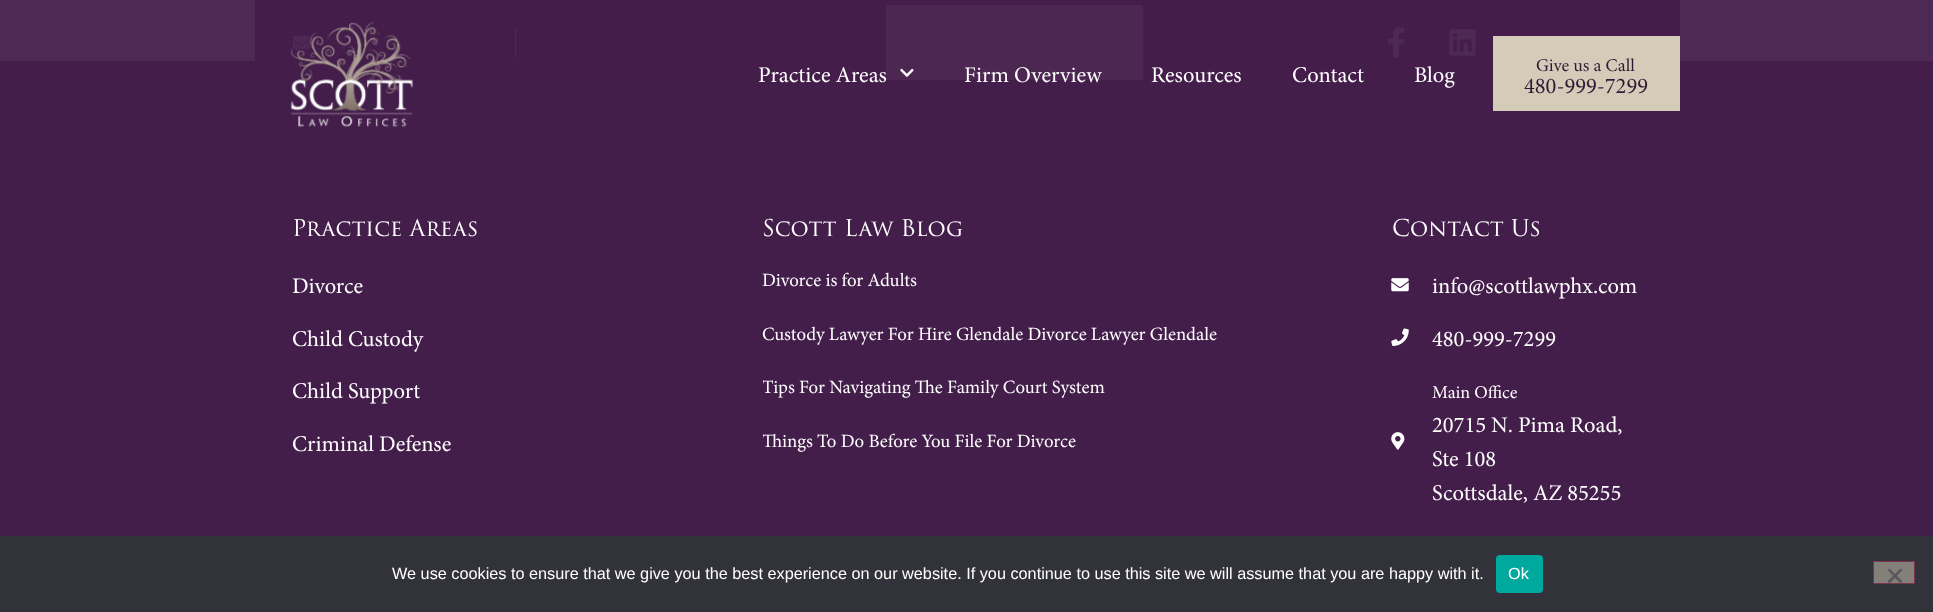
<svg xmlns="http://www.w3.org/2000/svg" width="1933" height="612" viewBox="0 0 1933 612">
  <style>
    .t1 { font: 22.5px Minion; fill: #fff; }
    .t2 { font: 18px Minion; fill: #321a37; }
    .t3 { font: 22.5px Minion; fill: #321a37; }
    .t4 { font: 22.5px 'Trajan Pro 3'; fill: #fff; }
    .t5 { font: 18.75px Minion; fill: #fff; }
    .t6 { font: 18px Minion; fill: #fff; }
    .t7 { font: 16.25px Liberation Sans; fill: #fff; }
  </style>
  <defs>
    <clipPath id="clip1"><rect x="763" y="376" width="553" height="23"/></clipPath>
    <clipPath id="clip2"><rect x="763" y="430" width="553" height="23"/></clipPath>
  </defs>
  <rect width="100%" height="100%" fill="#fff"/>
  <rect x="0" y="61" width="1933" height="475" fill="#441e4b"/>
  <rect x="255" y="0" width="1425" height="61" fill="#441e4b"/>
  <image x="293" y="35" width="17" height="14" href="images/3.png"/>
  <rect x="515" y="28" width="1" height="30" fill="#ddd"/>
  <rect x="886" y="5" width="257" height="75" fill="#d4ccb8"/>
  <image x="1388" y="27" width="17" height="31" href="images/4.png"/>
  <image x="1449" y="29" width="27" height="27" href="images/5.png"/>
  <rect x="0" y="0" width="1933" height="80" fill="#441e4bf2"/>
  <image x="290" y="22" width="124" height="105" href="images/1.png"/>
  <text x="758" y="82" class="t1">Practice Areas</text>
  <image x="900" y="68" width="14" height="9" href="images/2.png"/>
  <text x="964" y="82" class="t1">Firm Overview</text>
  <text x="1151" y="82" class="t1">Resources</text>
  <text x="1292" y="82" class="t1">Contact</text>
  <text x="1414" y="82" class="t1">Blog</text>
  <rect x="1493" y="36" width="187" height="75" fill="#d4ccb8"/>
  <text x="1536" y="71" class="t2">Give us a Call</text>
  <text x="1524" y="93" class="t3">480-999-7299</text>
  <text x="292" y="236" class="t4">Practice Areas</text>
  <text x="292" y="293" class="t1">Divorce</text>
  <text x="292" y="346" class="t1">Child Custody</text>
  <text x="292" y="398" class="t1">Child Support</text>
  <text x="292" y="451" class="t1">Criminal Defense</text>
  <text x="762" y="236" class="t4">Scott Law Blog</text>
  <text x="762" y="286" class="t5">Divorce is for Adults</text>
  <text x="762" y="340" class="t5">Custody Lawyer For Hire Glendale Divorce Lawyer Glendale</text>
  <g clip-path="url(#clip1)">
    <text x="762" y="393" class="t5">Tips For Navigating The Family Court System</text>
  </g>
  <g clip-path="url(#clip2)">
    <text x="762" y="447" class="t5">Things To Do Before You File For Divorce</text>
  </g>
  <text x="1392" y="236" class="t4">Contact Us</text>
  <image x="1391" y="278" width="18" height="14" href="images/6.png"/>
  <text x="1432" y="293" class="t1">info@scottlawphx.com</text>
  <image x="1391" y="328" width="18" height="18" href="images/7.png"/>
  <text x="1432" y="346" class="t1">480-999-7299</text>
  <image x="1391" y="432" width="14" height="18" href="images/8.png"/>
  <text x="1432" y="398" class="t6">Main Office</text>
  <text x="1432" y="432" class="t1">20715 N. Pima Road,</text>
  <text x="1432" y="466" class="t1">Ste 108</text>
  <text x="1432" y="500" class="t1">Scottsdale, AZ 85255</text>
  <rect x="0" y="536" width="1933" height="76" fill="#32323a"/>
  <text x="392" y="579" class="t7">We use cookies to ensure that we give you the best experience on our website. If you continue to use this site we will assume that you are happy with it.</text>
  <rect x="1496" y="555" width="47" height="38" rx="4" fill="#00a99d"/>
  <text x="1508" y="579" class="t7">Ok</text>
  <rect x="1873.5" y="561.5" width="41" height="22" fill="#837f79" stroke="#7f3350"/>
  <path d="M1900.5 568.5L1902.5 570L1889.5 583.5L1887.5 581.5Z" fill="#59595d"/>
  <path d="M1887.5 570L1889.5 568.5L1902.5 581.5L1900.5 583.5Z" fill="#59595d"/>
</svg>
